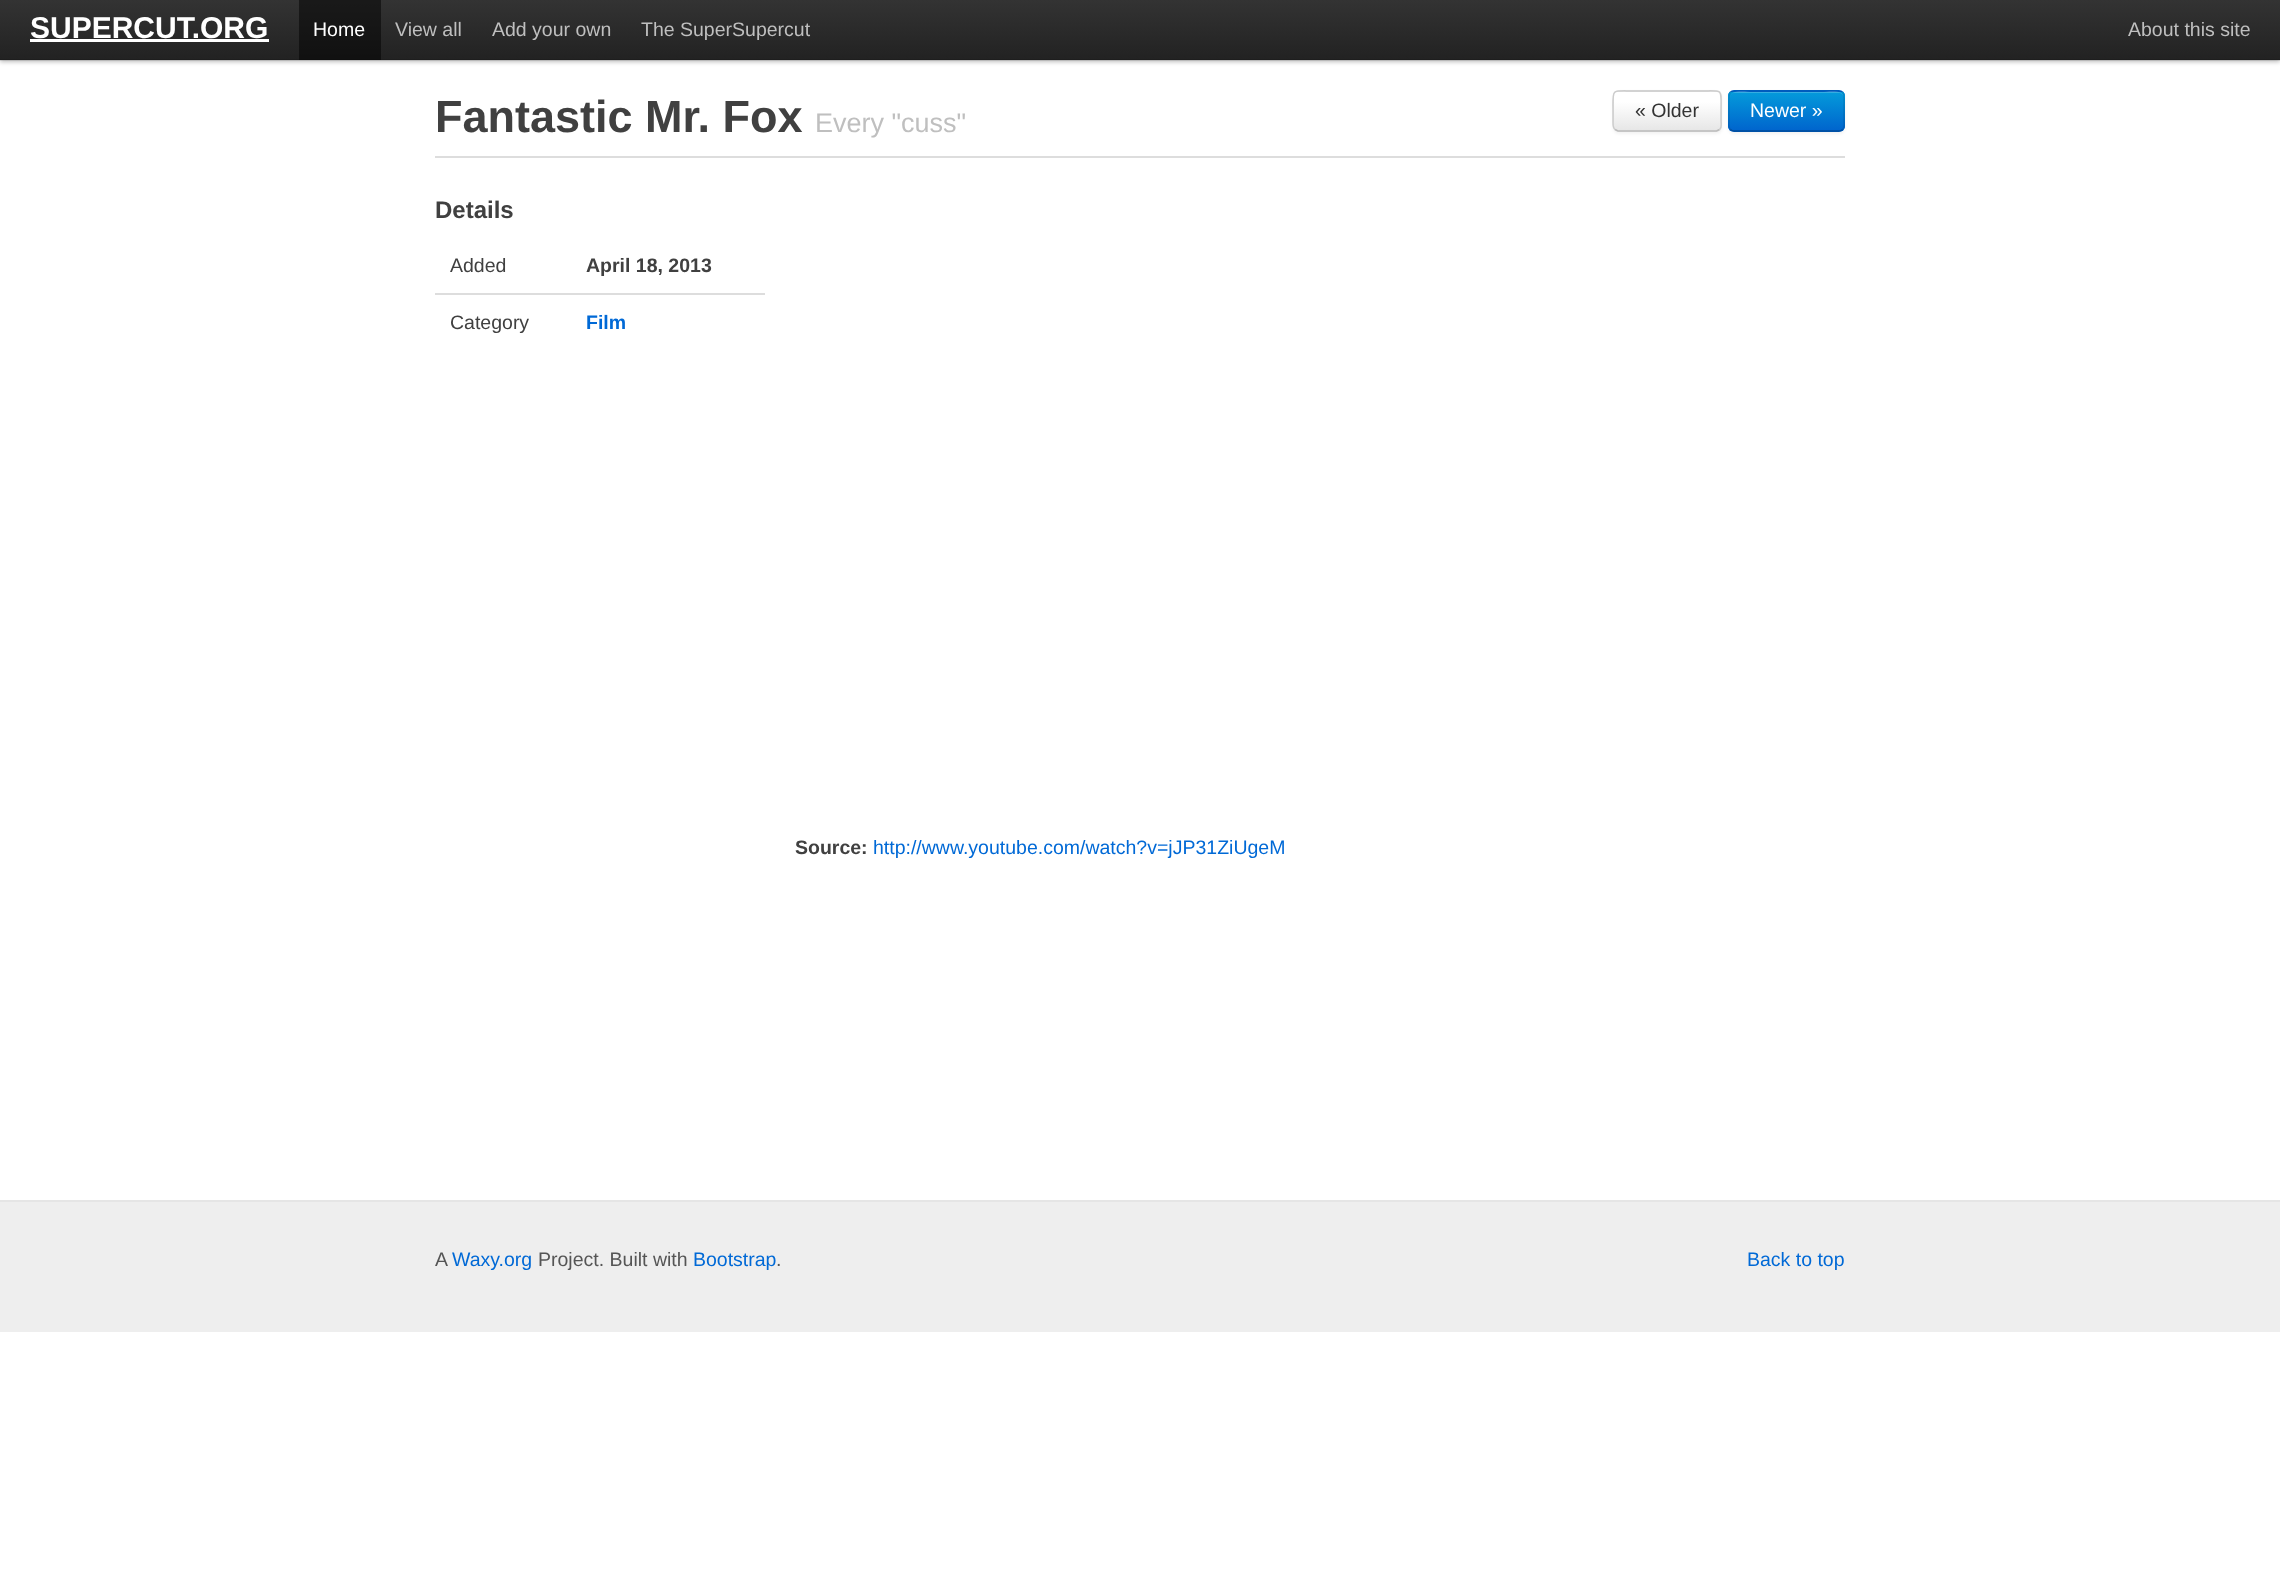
<svg xmlns="http://www.w3.org/2000/svg" width="2280" height="1596" viewBox="0 0 2280 1596">
  <style>
    .t1 { font: bold 30px Liberation Sans; fill: #fff; }
    .t2 { font: 19.5px Liberation Sans; fill: #fff; }
    .t3 { font: 19.5px Liberation Sans; fill: #bfbfbf; }
    .t4 { font: bold 45px Liberation Sans; fill: #404040; }
    .t5 { font: 27px Liberation Sans; fill: #bfbfbf; }
    .t6 { font: 19.5px Liberation Sans; fill: #333; }
    .t7 { font: bold 24px Liberation Sans; fill: #404040; }
    .t8 { font: 19.5px Liberation Sans; fill: #404040; }
    .t9 { font: bold 19.5px Liberation Sans; fill: #404040; }
    .t10 { font: bold 19.5px Liberation Sans; fill: #0069d6; }
    .t11 { font: 19.5px Liberation Sans; fill: #0069d6; }
    .t12 { font: 19.5px Liberation Sans; fill: #555; }
  </style>
  <defs>
    <linearGradient id="g1" gradientUnits="userSpaceOnUse" x1="1140" y1="0" x2="1140" y2="60"><stop offset="0" stop-color="#333"/><stop offset="1" stop-color="#222"/></linearGradient>
    <clipPath id="clip1"><rect x="1613" y="90" width="109" height="42" rx="6"/></clipPath>
    <linearGradient id="g2" gradientUnits="userSpaceOnUse" x1="1667" y1="92" x2="1667" y2="131"><stop offset="0" stop-color="#fff"/><stop offset="0.25" stop-color="#fff"/><stop offset="1" stop-color="#e6e6e6"/></linearGradient>
    <clipPath id="clip2"><rect x="1728" y="90" width="117" height="42" rx="6"/></clipPath>
    <linearGradient id="g3" gradientUnits="userSpaceOnUse" x1="1787" y1="91" x2="1787" y2="131"><stop offset="0" stop-color="#049cdb"/><stop offset="1" stop-color="#0064cd"/></linearGradient>
  </defs>
  <rect width="100%" height="100%" fill="#fff"/>
  <rect x="0" y="2" width="2280" height="60" fill="#00000040" filter="blur(2px)"/>
  <rect x="0" y="0" width="2280" height="60" fill="url(#g1)"/>
  <rect x="0" y="59" width="2280" height="2" fill="#0000001a"/>
  <text x="30" y="38" class="t1">SUPERCUT.ORG</text>
  <rect x="30" y="39" width="239" height="3" fill="#fff"/>
  <rect x="299" y="0" width="82" height="60" fill="#00000080"/>
  <text x="313" y="36" class="t2">Home</text>
  <text x="395" y="36" class="t3">View all</text>
  <text x="492" y="36" class="t3">Add your own</text>
  <text x="641" y="36" class="t3">The SuperSupercut</text>
  <text x="2128" y="36" class="t3">About this site</text>
  <rect x="435" y="156" width="1410" height="2" fill="#ddd"/>
  <text x="435" y="132" class="t4">Fantastic Mr. Fox</text>
  <text x="815" y="132" class="t5">Every "cuss"</text>
  <rect x="1613" y="92" width="109" height="42" rx="6" fill="#0000000d" filter="blur(1.5px)"/>
  <rect x="1613" y="90" width="109" height="42" rx="6" fill="#e6e6e6"/>
  <g clip-path="url(#clip1)">
    <rect x="1614" y="92" width="107" height="39" fill="url(#g2)"/>
  </g>
  <path d="M1618 93H1716C1722 93 1720 105 1720 108V129C1721 128 1721 127 1721 126V97C1721 94 1719 92 1716 92H1619C1616 92 1614 94 1614 97V98C1614 95 1616 93 1618 93Z" fill="#ffffff33"/>
  <path d="M1719.5 129.5L1716.5 131H1618L1615 129.5" fill="none" stroke="#bbb" stroke-width="1.5"/>
  <path d="M1615 129.5C1612.5 127.5 1613 124 1613 121V111C1613 87.5 1610.5 91 1635 91H1700C1724 91 1721 87.5 1721 111V121C1721 124 1722 127.5 1719.5 129.5" fill="none" stroke="#ccc" stroke-width="1.5"/>
  <text x="1635" y="117" class="t6">« Older</text>
  <rect x="1728" y="92" width="117" height="42" rx="6" fill="#0000000d" filter="blur(1.5px)"/>
  <rect x="1728" y="90" width="117" height="42" rx="6" fill="#0064cd"/>
  <g clip-path="url(#clip2)">
    <rect x="1728" y="92" width="117" height="39" fill="url(#g3)"/>
  </g>
  <path d="M1734 93H1839C1841 93 1844 95 1844 98C1844 88 1826 92 1822 92H1752C1748 92 1730 88 1730 98C1730 95 1732 93 1734 93Z" fill="#ffffff33"/>
  <path d="M1842.5 129.5C1841.5 130.5 1840.5 131 1839 131H1734C1732.5 131 1731.5 130.5 1730.5 129.5" fill="none" stroke="#00000040" stroke-width="1.5"/>
  <path d="M1730.5 129.5C1728 127.5 1729 124 1729 121V111C1729 87 1726 91 1751.5 91H1821.5C1847 91 1844 87 1844 111V121C1844 124 1845 127.5 1842.5 129.5" fill="none" stroke="#0000001a" stroke-width="1.5"/>
  <text x="1750" y="117" class="t2">Newer »</text>
  <text x="435" y="218" class="t7">Details</text>
  <text x="450" y="272" class="t8">Added</text>
  <text x="586" y="272" class="t9">April 18, 2013</text>
  <rect x="435" y="293" width="330" height="2" fill="#ddd"/>
  <text x="450" y="329" class="t8">Category</text>
  <text x="586" y="329" class="t10">Film</text>
  <text x="795" y="854" class="t9">Source:</text>
  <text x="873" y="854" class="t11">http://www.youtube.com/watch?v=jJP31ZiUgeM</text>
  <rect x="0" y="1202" width="2280" height="130" fill="#eee"/>
  <rect x="0" y="1200" width="2280" height="2" fill="#e5e5e5"/>
  <text x="435" y="1266" class="t12">A</text>
  <text x="452" y="1266" class="t11">Waxy.org</text>
  <text x="538" y="1266" class="t12">Project. Built with</text>
  <text x="693" y="1266" class="t11">Bootstrap</text>
  <text x="776" y="1266" class="t12">.</text>
  <text x="1747" y="1266" class="t11">Back to top</text>
</svg>
